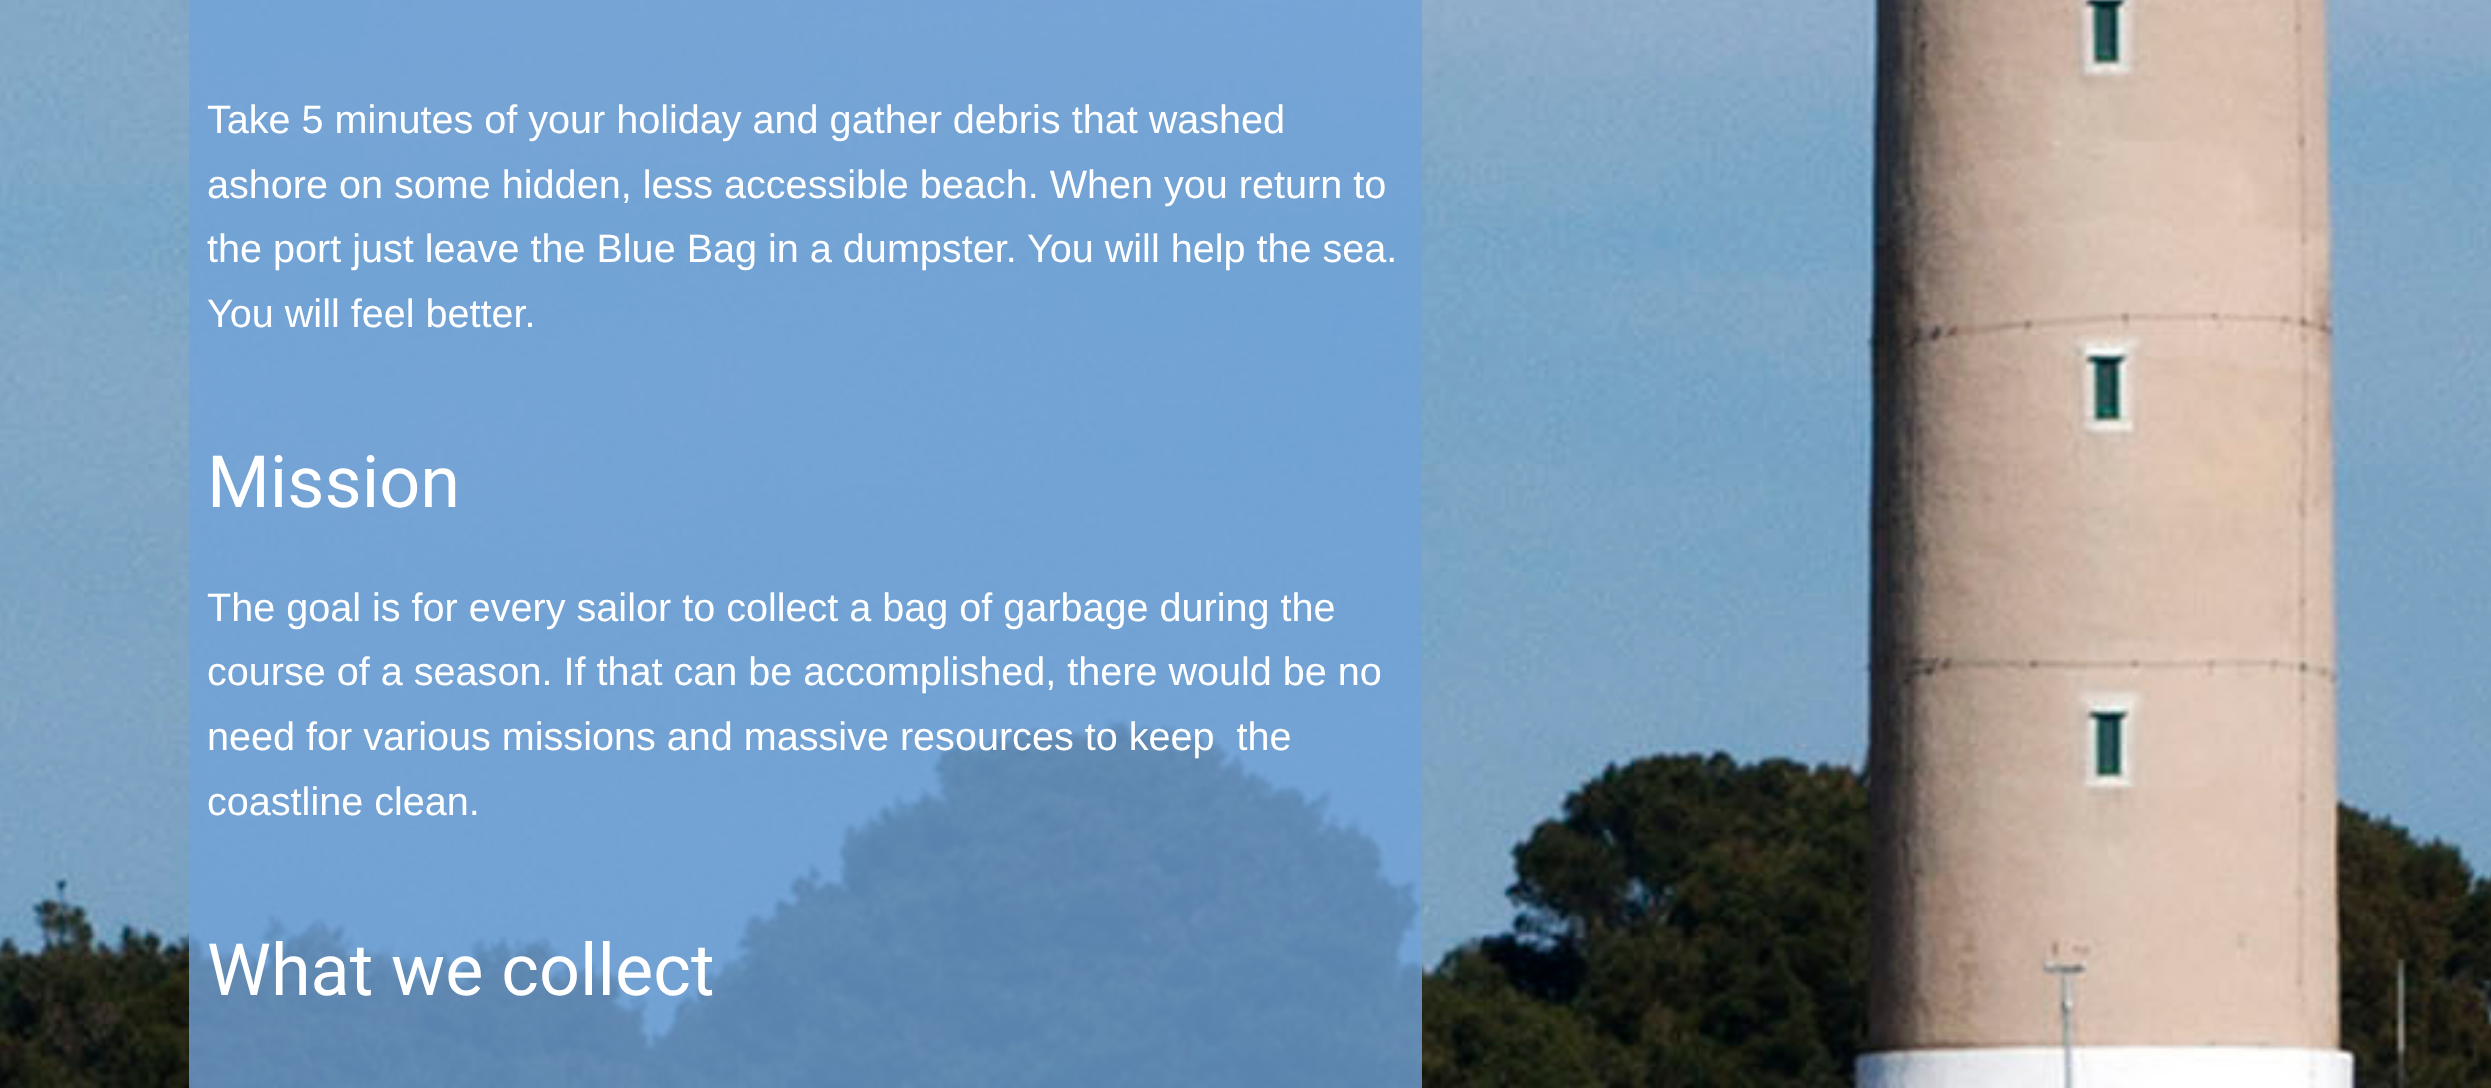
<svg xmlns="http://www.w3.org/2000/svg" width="2491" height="1088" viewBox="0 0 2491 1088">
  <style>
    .t1 { font: 39.6px Liberation Sans; fill: #fff; }
    .t2 { font: 72px Roboto; fill: #fff; }
  </style>
  <rect width="100%" height="100%" fill="#fff"/>
  <image x="0" y="0" width="2491" height="1088" href="images/1.png"/>
  <rect x="189" y="0" width="1233" height="1088" fill="#71a3d8cc"/>
  <text x="207" y="133" class="t1">Take 5 minutes of your holiday and gather debris that washed</text>
  <text x="207" y="198" class="t1">ashore on some hidden, less accessible beach. When you return to</text>
  <text x="207" y="262" class="t1">the port just leave the Blue Bag in a dumpster. You will help the sea.</text>
  <text x="207" y="327" class="t1">You will feel better.</text>
  <text x="207" y="507" class="t2">Mission</text>
  <text x="207" y="621" class="t1">The goal is for every sailor to collect a bag of garbage during the</text>
  <text x="207" y="685" class="t1">course of a season. If that can be accomplished, there would be no</text>
  <text x="207" y="750" class="t1" xml:space="preserve">need for various missions and massive resources to keep  the</text>
  <text x="207" y="815" class="t1">coastline clean.</text>
  <text x="207" y="995" class="t2">What we collect</text>
</svg>
